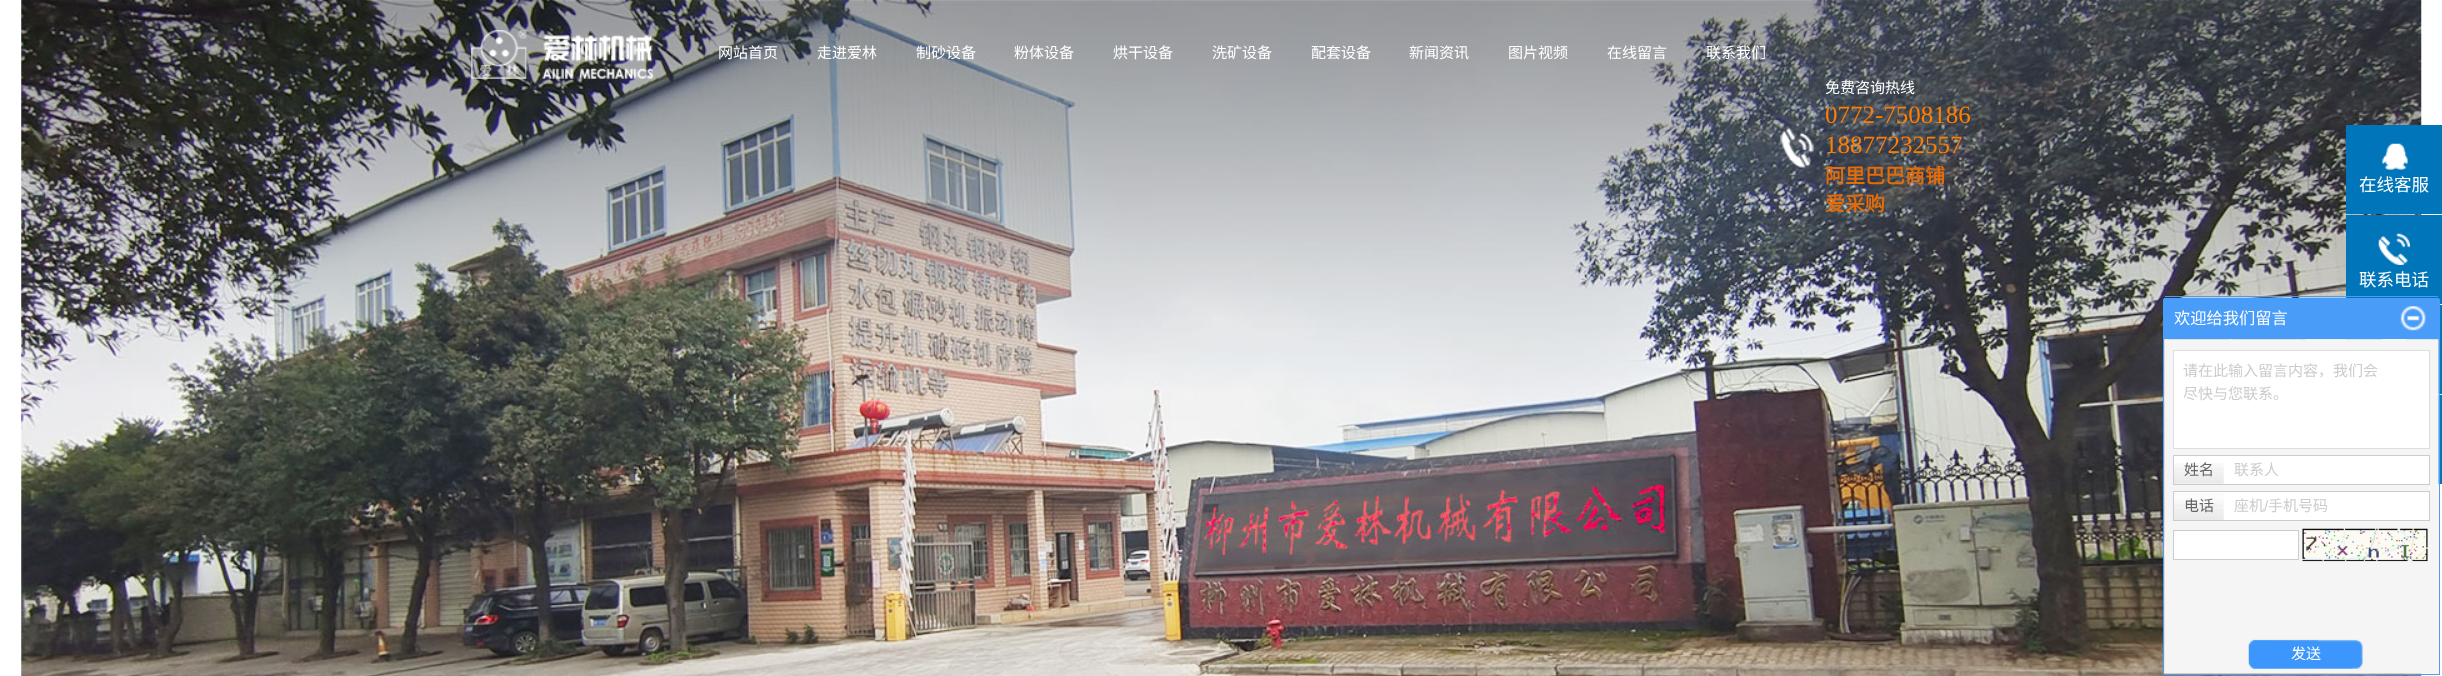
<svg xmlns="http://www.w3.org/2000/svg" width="2442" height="676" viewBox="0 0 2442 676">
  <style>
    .t1 { font: 15px Noto Sans CJK SC; fill: #fff; }
    .t2 { font: 25px Liberation Serif; fill: #ff7e00; }
    .t3 { font: bold 20px Noto Sans CJK SC; fill: #e36c09; }
    .t4 { font: 17.5px Noto Sans CJK SC; fill: #fff; }
    .t5 { font: 16.25px Noto Sans CJK SC; fill: #fff; }
    .t6 { font: 15px Noto Sans CJK SC; fill: #ccc; }
    .t7 { font: 15px Noto Sans CJK SC; fill: #666; }
    .t8 { font: 15px Liberation Sans; fill: #ccc; }
  </style>
  <rect width="100%" height="100%" fill="#fff"/>
  <image x="21" y="0" width="2401" height="676" href="images/1.png"/>
  <image x="471" y="30" width="183" height="49" href="images/2.png"/>
  <text x="718" y="58" class="t1">网站首页</text>
  <text x="817" y="58" class="t1">走进爱林</text>
  <text x="916" y="58" class="t1">制砂设备</text>
  <text x="1014" y="58" class="t1">粉体设备</text>
  <text x="1113" y="58" class="t1">烘干设备</text>
  <text x="1212" y="58" class="t1">洗矿设备</text>
  <text x="1311" y="58" class="t1">配套设备</text>
  <text x="1409" y="58" class="t1">新闻资讯</text>
  <text x="1508" y="58" class="t1">图片视频</text>
  <text x="1607" y="58" class="t1">在线留言</text>
  <text x="1706" y="58" class="t1">联系我们</text>
  <image x="1780" y="127" width="34" height="41" href="images/3.png"/>
  <text x="1825" y="93" class="t1">免费咨询热线</text>
  <text x="1825" y="123" class="t2">0772-7508186</text>
  <text x="1825" y="153" class="t2">18877232557</text>
  <text x="1825" y="183" class="t3">阿里巴巴商铺</text>
  <text x="1825" y="211" class="t3">爱采购</text>
  <rect x="2346" y="125" width="96" height="89" fill="#0075b9"/>
  <image x="2382" y="143" width="26" height="27" href="images/4.png"/>
  <text x="2359" y="191" class="t4">在线客服</text>
  <rect x="2346" y="215" width="96" height="89" fill="#0075b9"/>
  <image x="2378" y="233" width="32" height="32" href="images/5.png"/>
  <text x="2359" y="286" class="t4">联系电话</text>
  <rect x="2346" y="305" width="96" height="89" fill="#0075b9"/>
  <image x="2381" y="339" width="27" height="1" href="images/6.png"/>
  <rect x="2438" y="395" width="4" height="89" fill="#0075b9"/>
  <rect x="2165" y="296" width="273" height="1" fill="#4a9cf9"/>
  <rect x="2164" y="298" width="275" height="1" fill="#4a9cf9"/>
  <rect x="2163" y="299" width="277" height="39" fill="#4a9cf9"/>
  <text x="2174" y="324" class="t5">欢迎给我们留言</text>
  <image x="2400" y="306" width="26" height="25" href="images/7.png"/>
  <image x="2164" y="339" width="275" height="335" href="images/8.png"/>
  <rect x="2163.5" y="338.5" width="276" height="336" fill="none" stroke="#4a9cf9"/>
  <rect x="2173.5" y="350.5" width="256" height="98" fill="#fff" stroke="#dedede"/>
  <text x="2183" y="376" class="t6">请在此输入留言内容，我们会</text>
  <text x="2183" y="399" class="t6">尽快与您联系。</text>
  <rect x="2173.5" y="455.5" width="256" height="29" fill="#fff" stroke="#ccc"/>
  <image x="2174" y="463" width="50" height="21" href="images/9.png"/>
  <text x="2184" y="475" class="t7">姓名</text>
  <text x="2234" y="475" class="t6">联系人</text>
  <rect x="2173.5" y="491.5" width="256" height="29" fill="#fff" stroke="#ccc"/>
  <image x="2174" y="493" width="50" height="27" href="images/10.png"/>
  <text x="2184" y="511" class="t7">电话</text>
  <text x="2234" y="511" class="t6">座机</text>
  <text x="2264" y="511" class="t8">/</text>
  <text x="2268" y="511" class="t6">手机号码</text>
  <rect x="2173.5" y="530.5" width="125" height="29" fill="#fff" stroke="#ccc"/>
  <image x="2302" y="528" width="126" height="34" href="images/11.png"/>
  <image x="2248" y="639" width="115" height="31" href="images/12.png"/>
  <text x="2291" y="659" class="t1">发送</text>
</svg>
